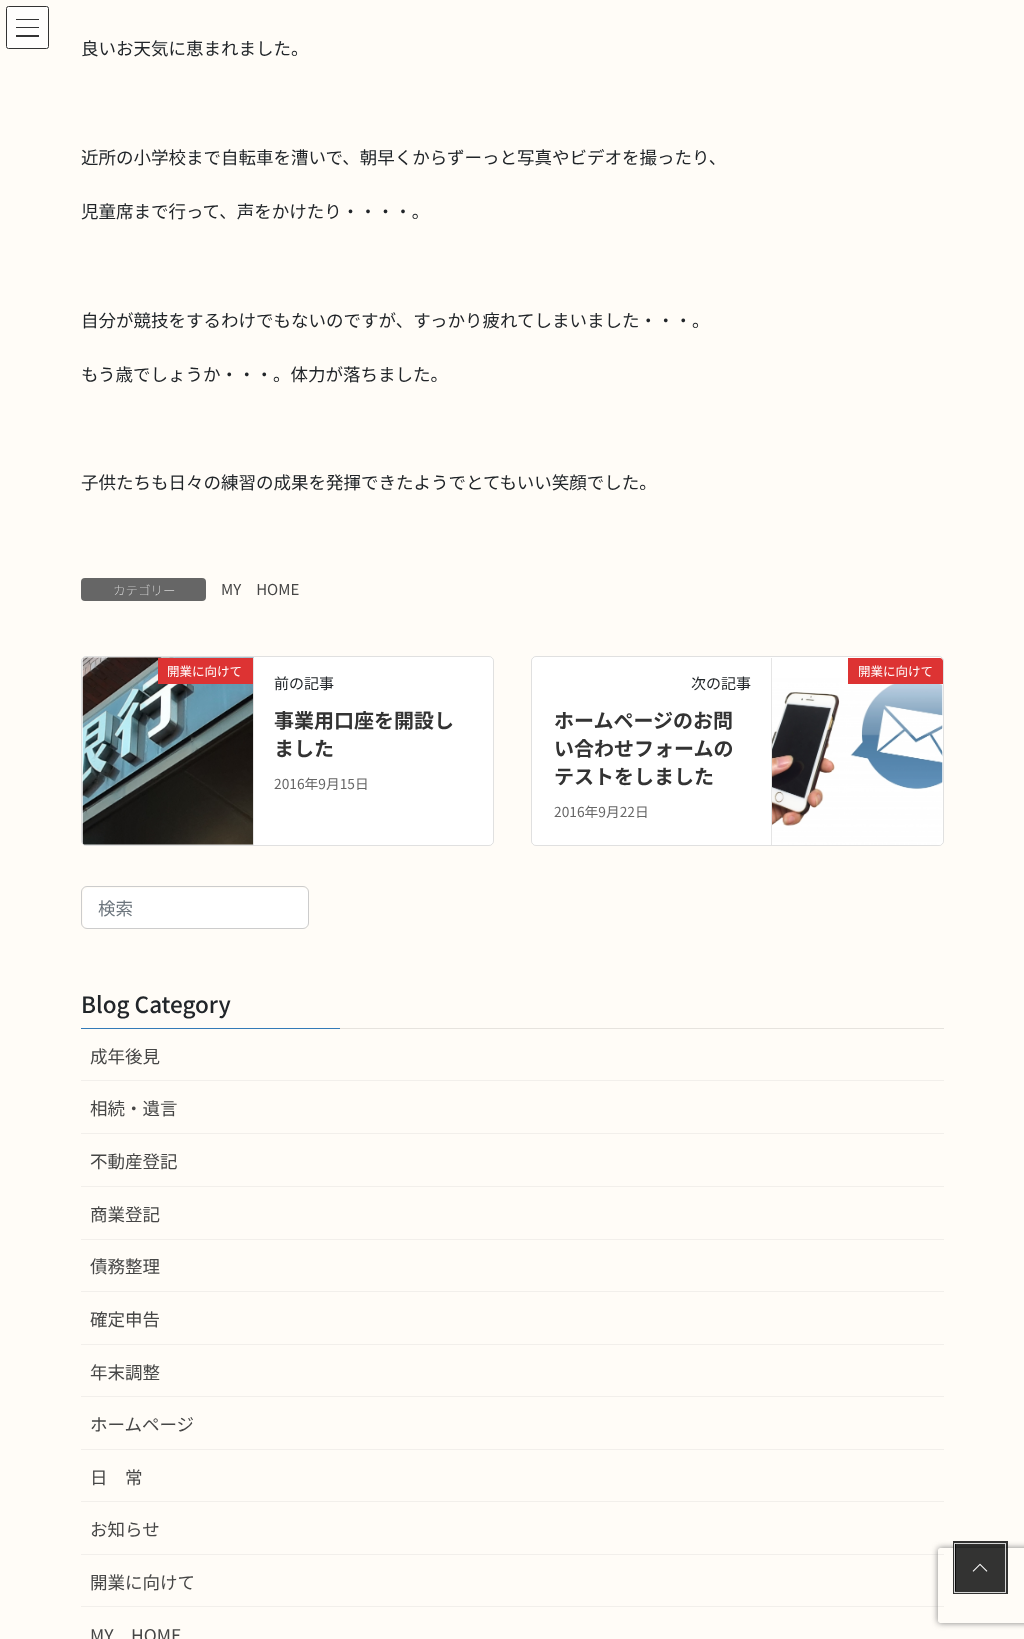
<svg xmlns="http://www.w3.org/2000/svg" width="1024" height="1639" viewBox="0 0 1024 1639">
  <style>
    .t1 { font: 17.5px Noto Sans JP; fill: #212529; }
    .t2 { font: 100 12.5px Noto Sans JP; fill: #fff; }
    .t3 { font: 15px Noto Sans JP; fill: #464646; }
    .t4 { font: 12.5px Noto Sans JP; fill: #fff; }
    .t5 { font: 15px Noto Sans JP; fill: #212529; }
    .t6 { font: bold 20px Noto Sans JP; fill: #333; }
    .t7 { font: 13.75px Noto Sans JP; fill: #666; }
    .t8 { font: 17.5px Noto Sans JP; fill: #6c757d; }
    .t9 { font: 500 22.5px Noto Sans JP; fill: #212529; }
    .t10 { font: 17.5px Noto Sans JP; fill: #464646; }
  </style>
  <defs>
    <clipPath id="clip1"><path d="M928 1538H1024V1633H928ZM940.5 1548H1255.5C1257 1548 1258 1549 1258 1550.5V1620.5C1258 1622 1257 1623 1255.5 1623H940.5C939 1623 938 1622 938 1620.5V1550.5C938 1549 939 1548 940.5 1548Z" clip-rule="evenodd"/></clipPath>
  </defs>
  <rect width="100%" height="100%" fill="#fffcf7"/>
  <rect x="6" y="6" width="43" height="43" rx="2.5" fill="#fffefd"/>
  <rect x="16" y="19" width="23" height="1" fill="#333"/>
  <rect x="16" y="27" width="23" height="1" fill="#333"/>
  <rect x="16" y="35" width="23" height="2" fill="#333"/>
  <rect x="6.5" y="6.5" width="42" height="42" rx="2" fill="none" stroke="#333"/>
  <text x="81" y="55" class="t1">良いお天気に恵まれました。</text>
  <text x="81" y="164" class="t1">近所の小学校まで自転車を漕いで、朝早くからずーっと写真やビデオを撮ったり、</text>
  <text x="81" y="218" class="t1">児童席まで行って、声をかけたり・・・・。</text>
  <text x="81" y="327" class="t1">自分が競技をするわけでもないのですが、すっかり疲れてしまいました・・・。</text>
  <text x="81" y="381" class="t1">もう歳でしょうか・・・。体力が落ちました。</text>
  <text x="81" y="489" class="t1">子供たちも日々の練習の成果を発揮できたようでとてもいい笑顔でした。</text>
  <rect x="81" y="578" width="125" height="23" rx="4" fill="#666"/>
  <text x="113" y="595" class="t2">カテゴリー</text>
  <text x="221" y="595" class="t3">MY　HOME</text>
  <rect x="81" y="656" width="413" height="190" rx="5" fill="#fff"/>
  <rect x="81.5" y="656.5" width="412" height="189" rx="4.5" fill="none" stroke="#0000001f"/>
  <image x="82" y="657" width="172" height="188" href="images/1.png"/>
  <rect x="253" y="658" width="1" height="187" fill="#e5e5e5"/>
  <rect x="158" y="658" width="95" height="26" fill="#d33"/>
  <text x="167" y="676" class="t4">開業に向けて</text>
  <text x="274" y="689" class="t5">前の記事</text>
  <text x="274" y="728" class="t6">事業用口座を開設し</text>
  <text x="274" y="756" class="t6">ました</text>
  <text x="274" y="789" class="t7">2016年9月15日</text>
  <rect x="531" y="656" width="413" height="190" rx="5" fill="#fff"/>
  <rect x="531.5" y="656.5" width="412" height="189" rx="4.5" fill="none" stroke="#0000001f"/>
  <image x="772" y="678" width="171" height="167" href="images/2.png"/>
  <rect x="771" y="658" width="1" height="187" fill="#e5e5e5"/>
  <path d="M848 658H940C941.5 658 943 659.5 943 661V684H848Z" fill="#d33"/>
  <text x="858" y="676" class="t4">開業に向けて</text>
  <text x="691" y="689" class="t5">次の記事</text>
  <text x="554" y="728" class="t6">ホームページのお問</text>
  <text x="554" y="756" class="t6">い合わせフォームの</text>
  <text x="554" y="784" class="t6">テストをしました</text>
  <text x="554" y="817" class="t7">2016年9月22日</text>
  <rect x="83" y="888" width="225" height="40" rx="5" fill="#fff"/>
  <rect x="81.5" y="886.5" width="227" height="42" rx="5.5" fill="none" stroke="#ccc"/>
  <text x="98" y="915" class="t8">検索</text>
  <rect x="340" y="1028" width="604" height="1" fill="#e6e3de"/>
  <text x="81" y="1013" class="t9">Blog Category</text>
  <rect x="81" y="1028" width="259" height="1" fill="#337ab7"/>
  <rect x="81" y="1080" width="863" height="1" fill="#f2efeb"/>
  <text x="90" y="1063" class="t10">成年後見</text>
  <rect x="81" y="1133" width="863" height="1" fill="#f2efeb"/>
  <text x="90" y="1115" class="t10">相続・遺言</text>
  <rect x="81" y="1186" width="863" height="1" fill="#f2efeb"/>
  <text x="90" y="1168" class="t10">不動産登記</text>
  <rect x="81" y="1239" width="863" height="1" fill="#f2efeb"/>
  <text x="90" y="1221" class="t10">商業登記</text>
  <rect x="81" y="1291" width="863" height="1" fill="#f2efeb"/>
  <text x="90" y="1273" class="t10">債務整理</text>
  <rect x="81" y="1344" width="863" height="1" fill="#f2efeb"/>
  <text x="90" y="1326" class="t10">確定申告</text>
  <rect x="81" y="1396" width="863" height="1" fill="#f2efeb"/>
  <text x="90" y="1379" class="t10">年末調整</text>
  <rect x="81" y="1449" width="863" height="1" fill="#f2efeb"/>
  <text x="90" y="1431" class="t10">ホームページ</text>
  <rect x="81" y="1501" width="863" height="1" fill="#f2efeb"/>
  <text x="90" y="1484" class="t10">日　常</text>
  <rect x="81" y="1554" width="863" height="1" fill="#f2efeb"/>
  <text x="90" y="1536" class="t10">お知らせ</text>
  <rect x="81" y="1606" width="863" height="1" fill="#f2efeb"/>
  <text x="90" y="1589" class="t10">開業に向けて</text>
  <text x="90" y="1642" class="t10">MY　HOME</text>
  <g clip-path="url(#clip1)">
    <rect x="938" y="1548" width="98" height="75" rx="2.5" fill="#808080" filter="blur(3px)"/>
  </g>
  <rect x="954.5" y="1542.5" width="52" height="50" fill="none" stroke="#000000cc" stroke-width="3"/>
  <rect x="954.5" y="1543.5" width="51" height="49" fill="none" stroke="#ffffffcc"/>
  <rect x="955" y="1544" width="50" height="47" fill="#000000cc"/>
  <image x="972" y="1563" width="16" height="9" href="images/3.png"/>
</svg>
